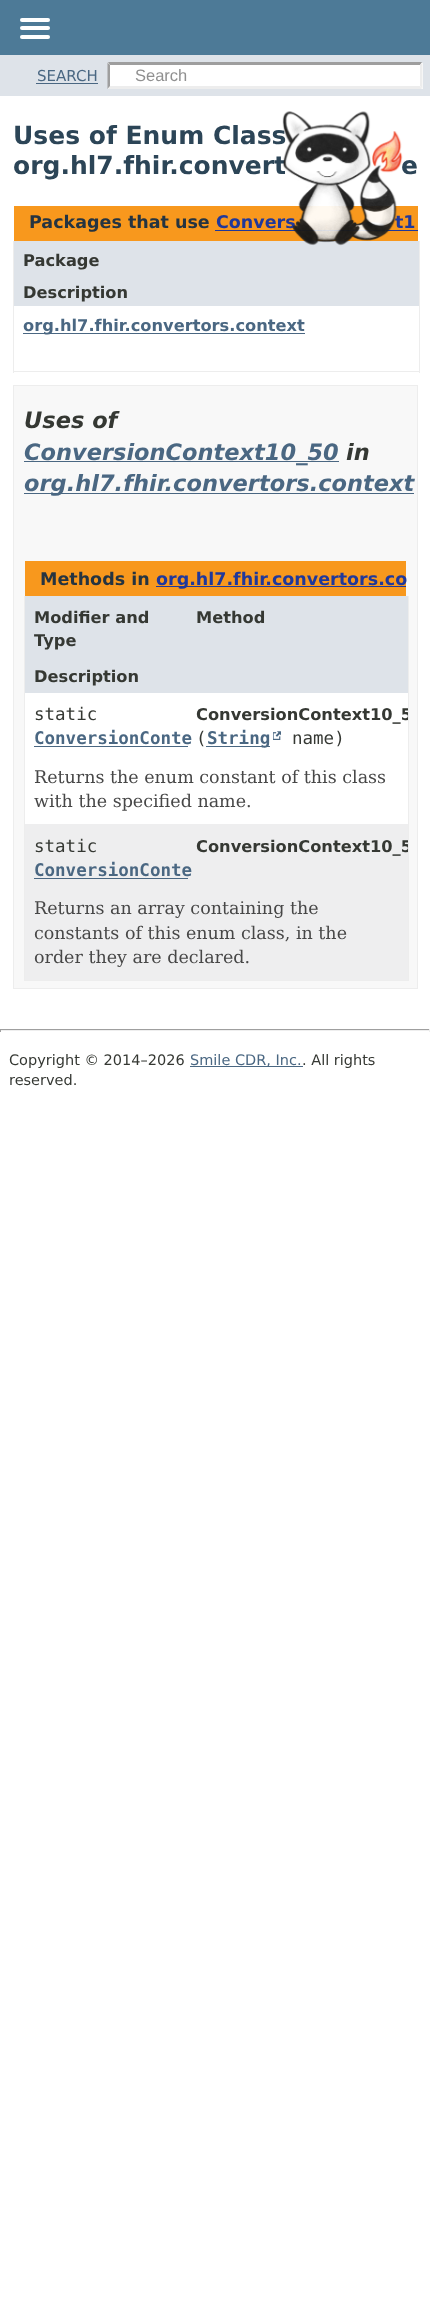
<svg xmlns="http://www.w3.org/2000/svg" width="430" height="2316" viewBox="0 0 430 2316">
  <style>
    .t1 { font: 15px DejaVu Sans; fill: #4a6782; }
    .t2 { font: 16.5px Liberation Sans; fill: #909090; }
    .t3 { font: bold 25px DejaVu Sans; fill: #2c4557; }
    .t4 { font: bold 17.5px DejaVu Sans; fill: #1f389c; }
    .t5 { font: bold 17.5px DejaVu Sans; fill: #253441; }
    .t6 { font: bold 16.25px DejaVu Sans; fill: #353833; }
    .t7 { font: bold 16.25px DejaVu Sans; fill: #4a6782; }
    .t8 { font: italic bold 22.5px DejaVu Sans; fill: #353833; }
    .t9 { font: italic bold 22.5px DejaVu Sans; fill: #4a6782; }
    .t10 { font: 17.5px DejaVu Sans Mono; fill: #353833; }
    .t11 { font: bold 17.5px DejaVu Sans Mono; fill: #4a6782; }
    .t12 { font: 17.5px DejaVu Serif; fill: #474747; }
    .t13 { font: 14.5px DejaVu Sans; fill: #353833; }
    .t14 { font: 14.5px DejaVu Sans; fill: #4a6782; }
  </style>
  <defs>
    <clipPath id="clip1"><rect x="188" y="693" width="220" height="62"/></clipPath>
    <clipPath id="clip2"><rect x="188" y="824" width="220" height="64"/></clipPath>
  </defs>
  <rect width="100%" height="100%" fill="#fff"/>
  <rect x="0" y="0" width="430" height="55" fill="#4d7a97"/>
  <rect x="20" y="18" width="30" height="4" rx="2" fill="#fff"/>
  <rect x="20" y="26" width="30" height="4" rx="2" fill="#fff"/>
  <rect x="20" y="35" width="30" height="4" rx="2" fill="#fff"/>
  <rect x="0" y="55" width="430" height="41" fill="#dee3e9"/>
  <text x="37" y="81" class="t1">SEARCH</text>
  <rect x="36" y="83" width="62" height="1" fill="#4a6782"/>
  <rect x="108" y="63" width="315" height="26" fill="#fff"/>
  <path d="M108 62H422L420 65H110Z" fill="#9e9e9e"/>
  <path d="M422.5 62.5V89L420 86V65Z" fill="#ededed"/>
  <path d="M422 89H108L110 86H420Z" fill="#ededed"/>
  <path d="M107.5 89V62.5L110 65V86Z" fill="#9e9e9e"/>
  <text x="135" y="81" class="t2">Search</text>
  <text x="13" y="144" class="t3">Uses of Enum Class</text>
  <text x="13" y="174" class="t3">org.hl7.fhir.convert</text>
  <text x="401" y="174" class="t3">e</text>
  <rect x="14" y="206" width="404" height="35" fill="#f8981d"/>
  <text x="216" y="228" class="t4">Convers</text>
  <rect x="215" y="230" width="203" height="1" fill="#1f389c"/>
  <text x="395" y="228" class="t4">t1</text>
  <rect x="14" y="241" width="405" height="65" fill="#dee3e9"/>
  <image x="282" y="111" width="121" height="135" href="images/1.png"/>
  <text x="29" y="228" class="t5">Packages that use</text>
  <rect x="419" y="241" width="1" height="132" fill="#ededed"/>
  <rect x="13" y="371" width="407" height="1" fill="#ededed"/>
  <rect x="13" y="241" width="1" height="132" fill="#ededed"/>
  <text x="23" y="266" class="t6">Package</text>
  <text x="23" y="298" class="t6">Description</text>
  <rect x="23" y="333" width="282" height="1" fill="#4a6782"/>
  <text x="23" y="331" class="t7">org.hl7.fhir.convertors.context</text>
  <rect x="13.5" y="385.5" width="404" height="603" fill="#f8f8f8" stroke="#ededed"/>
  <text x="24" y="428" class="t8">Uses of</text>
  <rect x="24" y="461" width="315" height="1" fill="#4a6782"/>
  <text x="24" y="460" class="t9">ConversionContext10_50</text>
  <text x="346" y="460" class="t8">in</text>
  <rect x="24" y="493" width="390" height="1" fill="#4a6782"/>
  <text x="24" y="491" class="t9">org.hl7.fhir.convertors.context</text>
  <rect x="25" y="561" width="381" height="35" fill="#f8981d"/>
  <text x="40" y="585" class="t5">Methods in</text>
  <rect x="156" y="586" width="250" height="1" fill="#1f389c"/>
  <text x="156" y="585" class="t4">org.hl7.fhir.convertors.co</text>
  <rect x="408" y="596" width="1" height="385" fill="#ededed"/>
  <rect x="24" y="980" width="385" height="1" fill="#ededed"/>
  <rect x="24" y="596" width="1" height="385" fill="#ededed"/>
  <rect x="25" y="596" width="383" height="97" fill="#dee3e9"/>
  <text x="34" y="623" class="t6">Modifier and</text>
  <text x="34" y="646" class="t6">Type</text>
  <text x="196" y="623" class="t6">Method</text>
  <text x="34" y="682" class="t6">Description</text>
  <rect x="25" y="693" width="383" height="131" fill="#fff"/>
  <text x="34" y="720" class="t10">static</text>
  <text x="34" y="744" class="t11">ConversionConte</text>
  <rect x="34" y="746" width="154" height="1" fill="#4a6782"/>
  <g clip-path="url(#clip1)">
    <text x="196" y="720" class="t6">ConversionContext10_5</text>
  </g>
  <text x="196" y="744" class="t10">(</text>
  <rect x="206" y="746" width="64" height="1" fill="#4a6782"/>
  <text x="207" y="744" class="t11">String</text>
  <image x="273" y="731" width="8" height="9" href="images/2.png"/>
  <text x="292" y="744" class="t10">name)</text>
  <text x="34" y="783" class="t12">Returns the enum constant of this class</text>
  <text x="34" y="807" class="t12">with the specified name.</text>
  <rect x="25" y="824" width="383" height="156" fill="#eeeeef"/>
  <text x="34" y="852" class="t10">static</text>
  <text x="34" y="876" class="t11">ConversionConte</text>
  <rect x="34" y="878" width="154" height="1" fill="#4a6782"/>
  <g clip-path="url(#clip2)">
    <text x="196" y="852" class="t6">ConversionContext10_5</text>
  </g>
  <text x="34" y="914" class="t12">Returns an array containing the</text>
  <text x="34" y="939" class="t12">constants of this enum class, in the</text>
  <text x="34" y="963" class="t12">order they are declared.</text>
  <rect x="0" y="1029" width="430" height="1" fill="#9f9f9f"/>
  <rect x="429" y="1029" width="1" height="3" fill="#eee"/>
  <rect x="0" y="1030" width="430" height="1" fill="#eee"/>
  <rect x="0" y="1029" width="1" height="3" fill="#9f9f9f"/>
  <text x="9" y="1065" class="t13">Copyright © 2014–2026</text>
  <rect x="190" y="1066" width="113" height="1" fill="#4a6782"/>
  <text x="190" y="1065" class="t14">Smile CDR, Inc.</text>
  <text x="302" y="1065" class="t13">. All rights</text>
  <text x="9" y="1085" class="t13">reserved.</text>
</svg>
